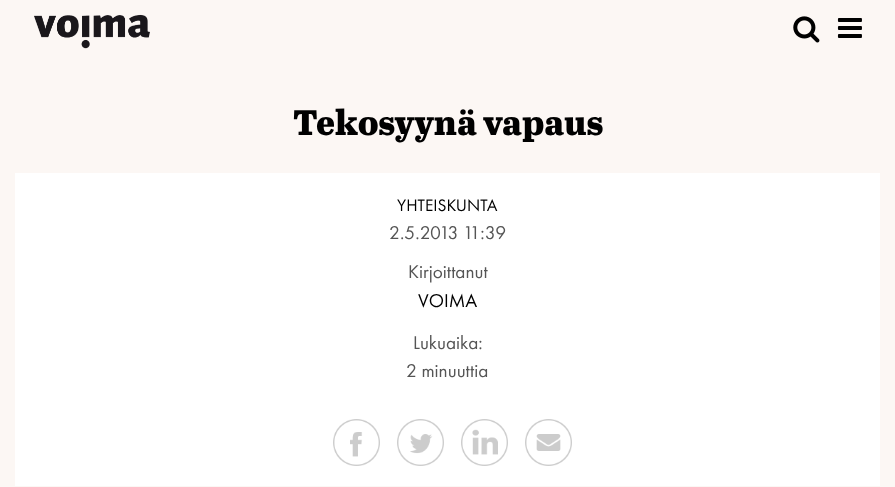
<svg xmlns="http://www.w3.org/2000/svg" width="895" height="487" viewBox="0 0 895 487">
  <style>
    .t1 { font: 800 35.25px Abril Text; fill: #000; }
    .t2 { font: 17.25px Futura PT; fill: #000; }
    .t3 { font: 19.25px Futura PT; fill: #555; }
    .t4 { font: 19.25px Futura PT; fill: #000; }
  </style>
  <rect width="100%" height="100%" fill="#fcf7f4"/>
  <image x="34" y="14" width="116" height="35" href="images/1.png"/>
  <image x="793" y="16" width="27" height="27" href="images/2.png"/>
  <image x="837" y="18" width="25" height="20" href="images/3.png"/>
  <text x="293" y="135" class="t1">Tekosyynä vapaus</text>
  <rect x="15" y="173" width="865" height="313" fill="#fff"/>
  <text x="397" y="211" class="t2">YHTEISKUNTA</text>
  <text x="389" y="239" class="t3">2.5.2013 11:39</text>
  <text x="408" y="278" class="t3">Kirjoittanut</text>
  <text x="418" y="307" class="t4">VOIMA</text>
  <image x="333" y="419" width="47" height="47" href="images/4.png"/>
  <image x="397" y="419" width="47" height="47" href="images/5.png"/>
  <image x="461" y="419" width="47" height="47" href="images/6.png"/>
  <image x="525" y="419" width="47" height="47" href="images/7.png"/>
  <text x="413" y="349" class="t3">Lukuaika:</text>
  <text x="406" y="377" class="t3">2 minuuttia</text>
</svg>
